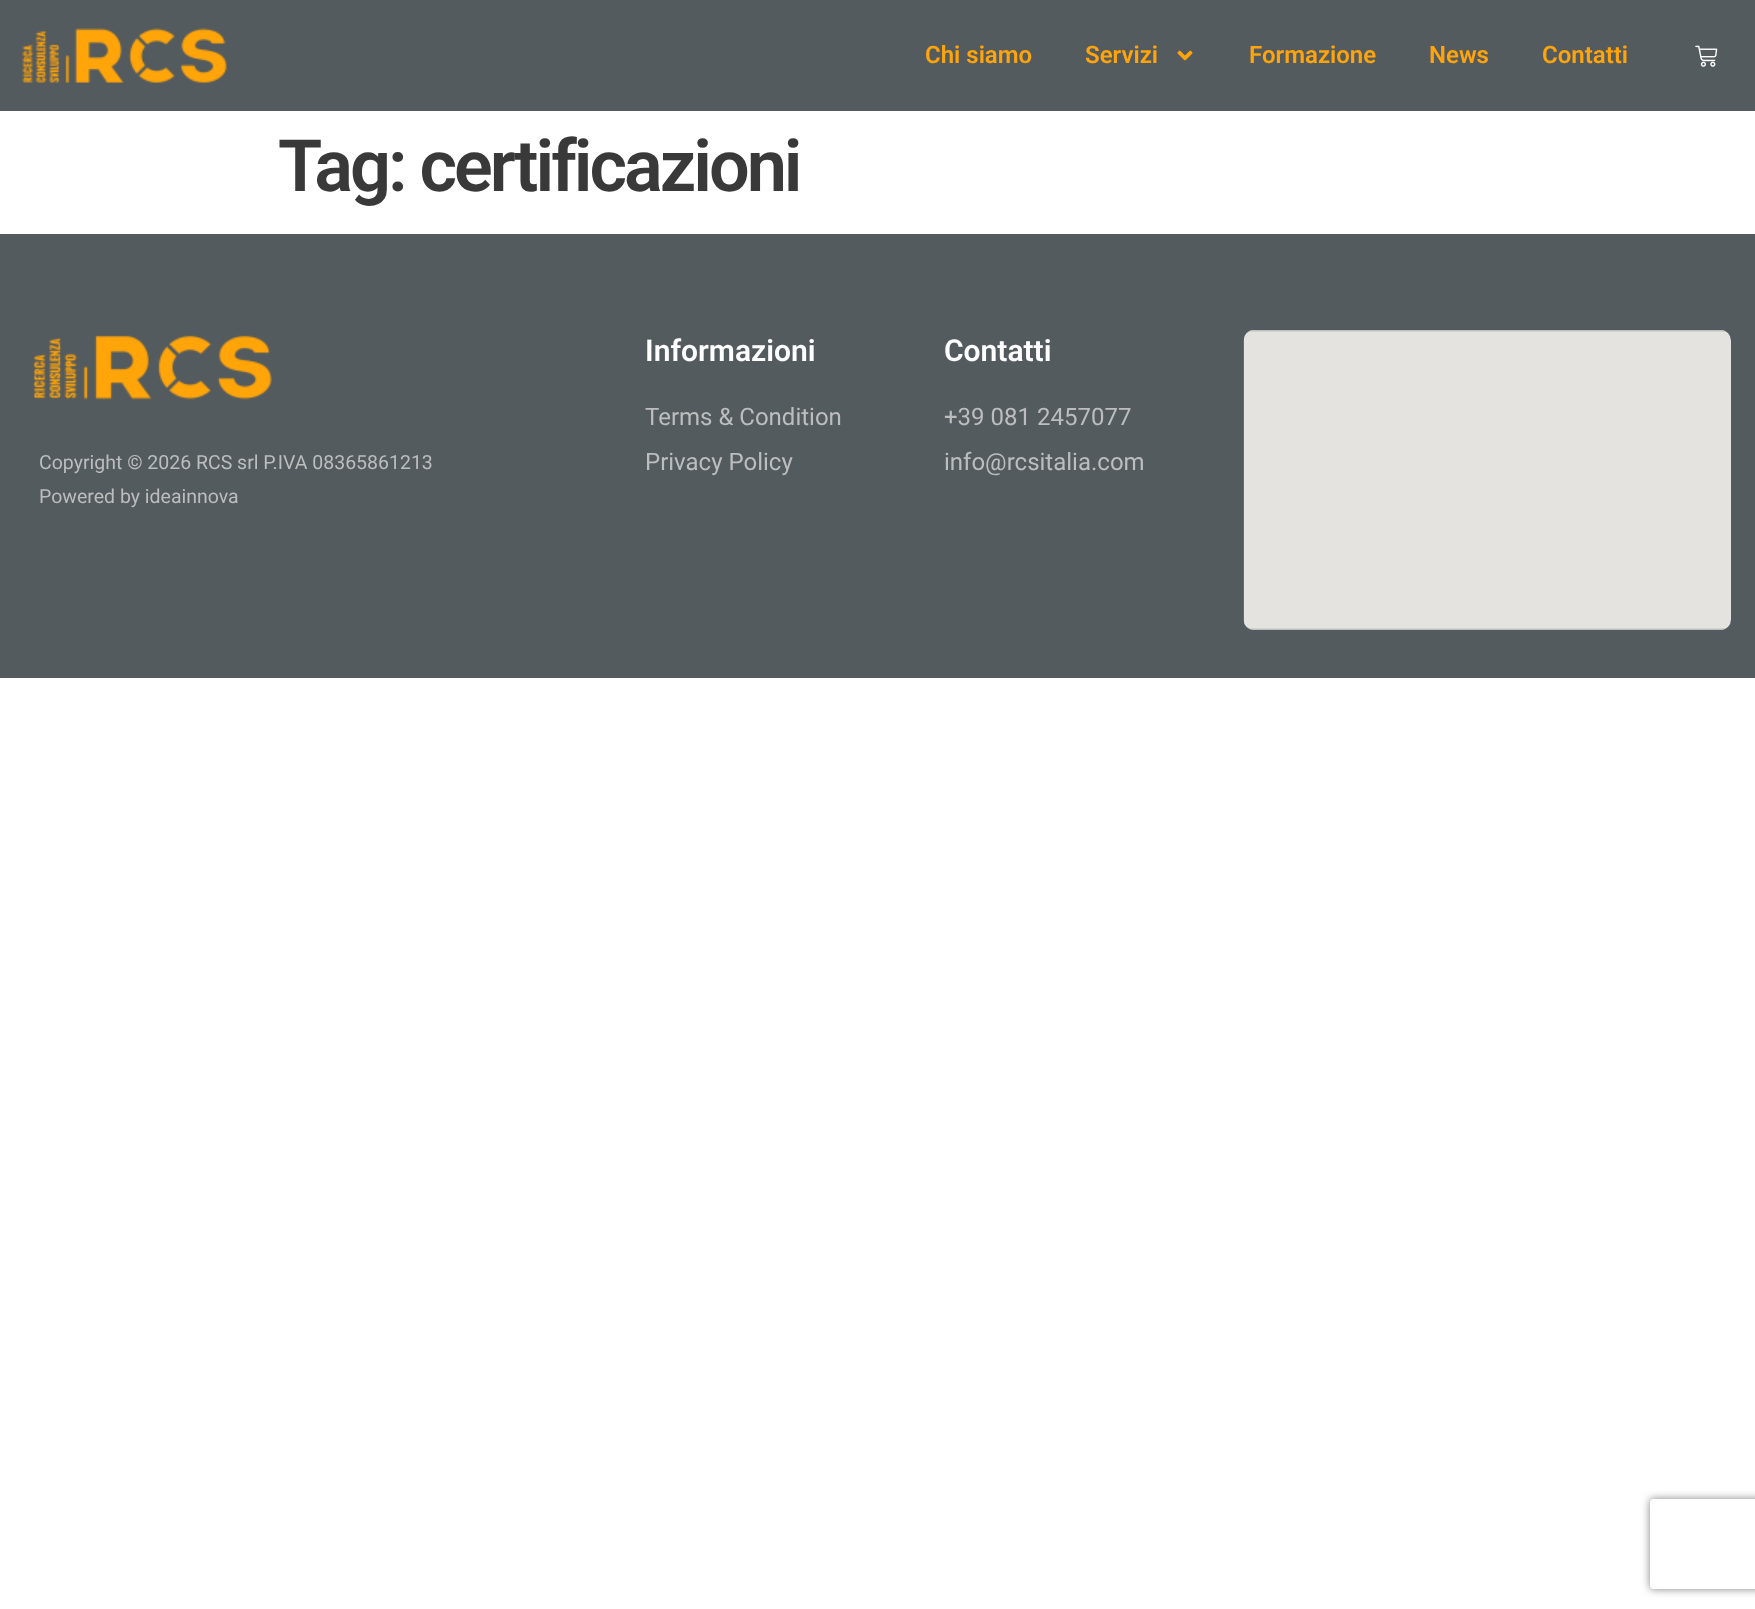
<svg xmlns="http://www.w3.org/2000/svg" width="1755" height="1609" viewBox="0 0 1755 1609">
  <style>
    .t1 { font: 600 24px Roboto; fill: #ffa40a; }
    .t2 { font: 600 72px Roboto; letter-spacing: -3px; fill: #393939; }
    .t3 { font: 19.5px Roboto; fill: #bbbdbf; }
    .t4 { font: 600 30px Roboto; fill: #fff; }
    .t5 { font: 24px Roboto; fill: #bbbdbf; }
  </style>
  <defs>
    <clipPath id="clip1"><path d="M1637 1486H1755V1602H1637ZM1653 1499H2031C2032.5 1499 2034 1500.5 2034 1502V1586C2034 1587.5 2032.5 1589 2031 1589H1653C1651.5 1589 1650 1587.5 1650 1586V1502C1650 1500.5 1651.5 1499 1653 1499Z" clip-rule="evenodd"/></clipPath>
  </defs>
  <rect width="100%" height="100%" fill="#fff"/>
  <rect x="0" y="0" width="1755" height="111" fill="#545b5f"/>
  <image x="22" y="28" width="205" height="56" href="images/1.png"/>
  <text x="925" y="63" class="t1">Chi siamo</text>
  <text x="1085" y="63" class="t1">Servizi</text>
  <image x="1177" y="50" width="16" height="11" href="images/2.png"/>
  <text x="1249" y="63" class="t1">Formazione</text>
  <text x="1429" y="63" class="t1">News</text>
  <text x="1542" y="63" class="t1">Contatti</text>
  <image x="1695" y="45" width="23" height="22" href="images/3.png"/>
  <text x="278" y="191" class="t2">Tag: certificazioni</text>
  <rect x="0" y="234" width="1755" height="444" fill="#545b5f"/>
  <image x="33" y="335" width="239" height="65" href="images/4.png"/>
  <text x="39" y="469" class="t3">Copyright © 2026 RCS srl P.IVA 08365861213</text>
  <text x="39" y="503" class="t3">Powered by ideainnova</text>
  <text x="645" y="361" class="t4">Informazioni</text>
  <text x="645" y="425" class="t5">Terms &amp; Condition</text>
  <text x="645" y="470" class="t5">Privacy Policy</text>
  <text x="944" y="361" class="t4">Contatti</text>
  <text x="944" y="425" class="t5">+39 081 2457077</text>
  <text x="944" y="470" class="t5">info@rcsitalia.com</text>
  <image x="1243" y="330" width="488" height="300" href="images/5.png"/>
  <g clip-path="url(#clip1)">
    <rect x="1650" y="1499" width="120" height="90" rx="3" fill="#808080" filter="blur(4px)"/>
  </g>
</svg>
